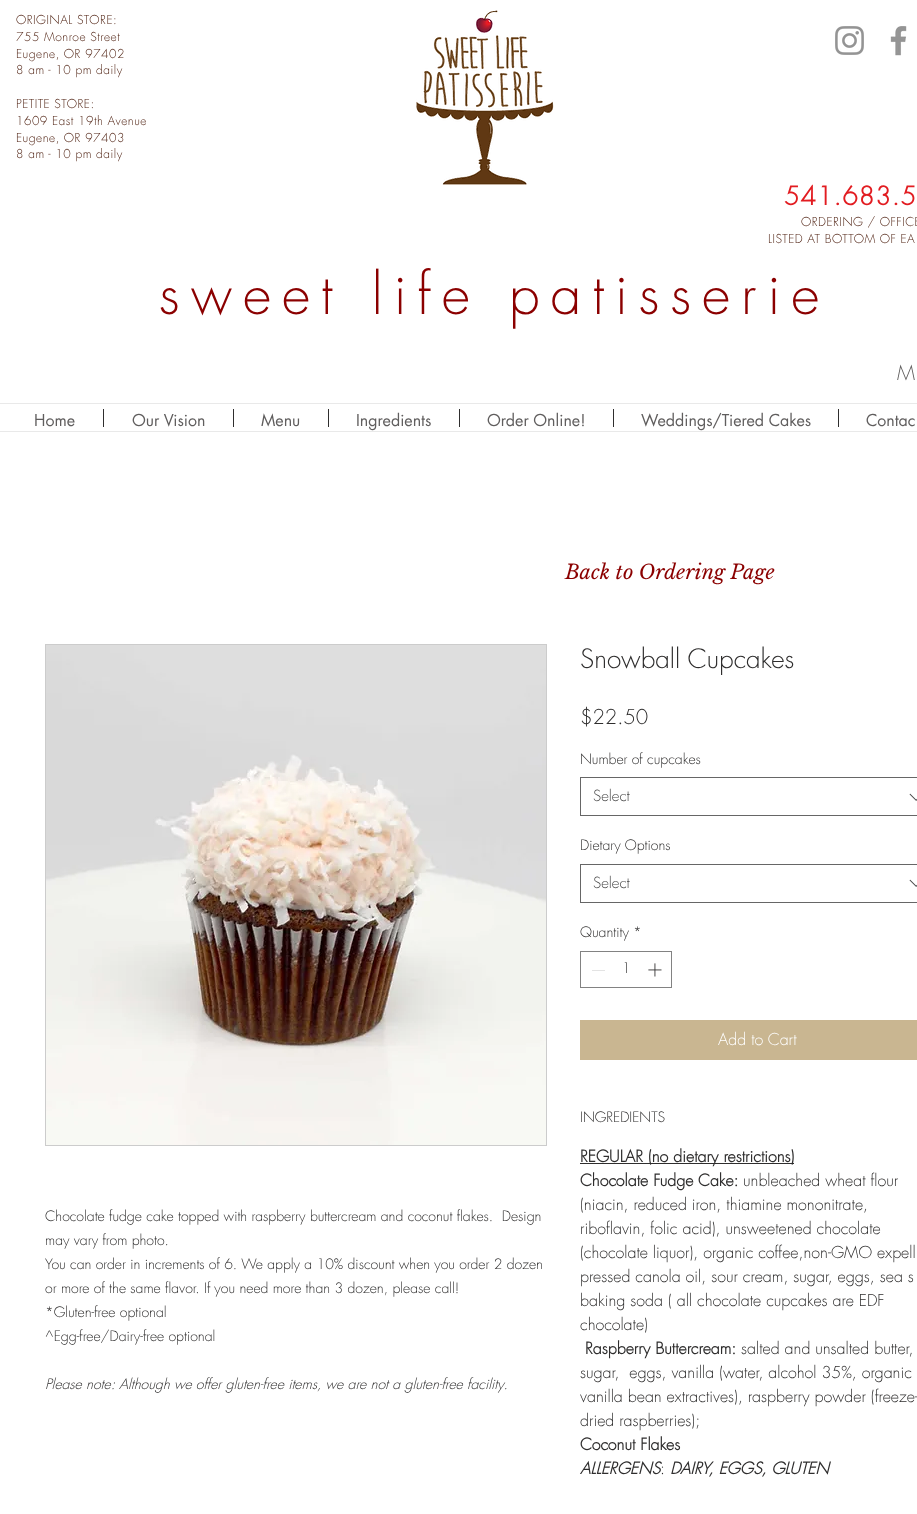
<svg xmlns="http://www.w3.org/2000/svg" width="917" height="1514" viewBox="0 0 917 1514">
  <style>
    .t1 { font: 300 12px futura; letter-spacing: 0.5px; fill: #4a1b0b; }
    .t2 { font: bold 25px futura; letter-spacing: 1px; fill: #e21c21; }
    .t3 { font: 300 55px futura; letter-spacing: 11px; fill: #8b0000; }
    .t4 { font: 300 20px futura; fill: #605e5e; }
    .t5 { font: 16px futura; fill: #605e5e; }
    .t6 { font: italic 20px Libre Baskerville; fill: #8b0000; }
    .t7 { font: 300 14px futura; fill: #2f2e2e; }
    .t8 { font: italic 300 14px futura; fill: #2f2e2e; }
    .t9 { font: 300 26px futura; fill: #2f2e2e; }
    .t10 { font: 300 20px futura; fill: #2f2e2e; }
    .t11 { font: 300 15px futura; fill: #444; }
    .t12 { font: 300 16px futura; fill: #fff; }
    .t13 { font: bold 16px futura; fill: #2f2e2e; }
    .t14 { font: 300 16px futura; fill: #2f2e2e; }
    .t15 { font: italic bold 16px futura; fill: #2f2e2e; }
  </style>
  <rect width="100%" height="100%" fill="#fff"/>
  <text x="16" y="24" class="t1">ORIGINAL STORE:</text>
  <text x="16" y="41" class="t1">755 Monroe Street</text>
  <text x="16" y="58" class="t1">Eugene, OR 97402</text>
  <text x="16" y="74" class="t1">8 am - 10 pm daily</text>
  <text x="16" y="108" class="t1">PETITE STORE:</text>
  <text x="16" y="125" class="t1">1609 East 19th Avenue</text>
  <text x="16" y="142" class="t1">Eugene, OR 97403</text>
  <text x="16" y="158" class="t1">8 am - 10 pm daily</text>
  <image x="416" y="10" width="138" height="175" href="images/1.png"/>
  <image x="835" y="26" width="29" height="29" href="images/2.png"/>
  <image x="890" y="26" width="17" height="30" href="images/3.png"/>
  <text x="784" y="205" class="t2">541.683.5</text>
  <text x="801" y="226" class="t1">ORDERING / OFFICE</text>
  <text x="768" y="243" class="t1">LISTED AT BOTTOM OF EA</text>
  <text x="159" y="314" class="t3">sweet life patisserie</text>
  <text x="897" y="380" class="t4">M</text>
  <rect x="0" y="403" width="917" height="1" fill="#e9e9e9"/>
  <text x="34" y="426" class="t5">Home</text>
  <rect x="103" y="409" width="1" height="18" fill="#2f2e2e"/>
  <text x="132" y="426" class="t5">Our Vision</text>
  <rect x="233" y="409" width="1" height="18" fill="#2f2e2e"/>
  <text x="261" y="426" class="t5">Menu</text>
  <rect x="328" y="409" width="1" height="18" fill="#2f2e2e"/>
  <text x="356" y="426" class="t5">Ingredients</text>
  <rect x="459" y="409" width="1" height="18" fill="#2f2e2e"/>
  <text x="487" y="426" class="t5">Order Online!</text>
  <rect x="613" y="409" width="1" height="18" fill="#2f2e2e"/>
  <text x="641" y="426" class="t5">Weddings/Tiered Cakes</text>
  <rect x="838" y="409" width="1" height="18" fill="#2f2e2e"/>
  <text x="866" y="426" class="t5">Contac</text>
  <rect x="0" y="431" width="917" height="1" fill="#e9e9e9"/>
  <text x="565" y="579" class="t6">Back to Ordering Page</text>
  <rect x="45.5" y="644.5" width="501" height="501" fill="none" stroke="#ccc"/>
  <image x="46" y="645" width="500" height="500" href="images/4.png"/>
  <text x="45" y="1221" class="t7" xml:space="preserve">Chocolate fudge cake topped with raspberry buttercream and coconut flakes.  Design</text>
  <text x="45" y="1245" class="t7">may vary from photo.</text>
  <text x="45" y="1269" class="t7">You can order in increments of 6. We apply a 10% discount when you order 2 dozen</text>
  <text x="45" y="1293" class="t7">or more of the same flavor. If you need more than 3 dozen, please call!</text>
  <text x="45" y="1317" class="t7">*Gluten-free optional</text>
  <text x="45" y="1341" class="t7">^Egg-free/Dairy-free optional</text>
  <text x="45" y="1389" class="t8">Please note: Although we offer gluten-free items, we are not a gluten-free facility.</text>
  <text x="580" y="668" class="t9">Snowball Cupcakes</text>
  <text x="580" y="724" class="t10">$22.50</text>
  <text x="580" y="764" class="t7">Number of cupcakes</text>
  <rect x="580.5" y="777.5" width="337" height="38" fill="none" stroke="#666"/>
  <text x="593" y="801" class="t11">Select</text>
  <image x="909" y="793" width="8" height="8" href="images/5.png"/>
  <text x="580" y="850" class="t7">Dietary Options</text>
  <rect x="580.5" y="864.5" width="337" height="38" fill="none" stroke="#666"/>
  <text x="593" y="888" class="t11">Select</text>
  <image x="909" y="879" width="8" height="8" href="images/5.png"/>
  <text x="580" y="937" class="t7">Quantity</text>
  <text x="633" y="937" class="t7">*</text>
  <rect x="580.5" y="951.5" width="91" height="36" fill="none" stroke="#828282"/>
  <rect x="592" y="970" width="13" height="1" fill="#e3e3e3"/>
  <text x="622" y="973" class="t7">1</text>
  <image x="648" y="963" width="14" height="14" href="images/6.png"/>
  <rect x="580" y="1020" width="337" height="40" fill="#c9b691"/>
  <text x="718" y="1045" class="t12">Add to Cart</text>
  <text x="580" y="1122" class="t7">INGREDIENTS</text>
  <rect x="580" y="1163" width="214" height="1" fill="#2f2e2e"/>
  <text x="580" y="1162" class="t13">REGULAR (no dietary restrictions)</text>
  <text x="580" y="1186" class="t13">Chocolate Fudge Cake:</text>
  <text x="743" y="1186" class="t14">unbleached wheat flour</text>
  <text x="580" y="1210" class="t14">(niacin, reduced iron, thiamine mononitrate,</text>
  <text x="580" y="1234" class="t14">riboflavin, folic acid), unsweetened chocolate</text>
  <text x="580" y="1258" class="t14">(chocolate liquor), organic coffee,non-GMO expell</text>
  <text x="580" y="1282" class="t14">pressed canola oil, sour cream, sugar, eggs, sea s</text>
  <text x="580" y="1306" class="t14">baking soda ( all chocolate cupcakes are EDF</text>
  <text x="580" y="1330" class="t14">chocolate)</text>
  <text x="585" y="1354" class="t13">Raspberry Buttercream:</text>
  <text x="741" y="1354" class="t14">salted and unsalted butter,</text>
  <text x="580" y="1378" class="t14" xml:space="preserve">sugar,  eggs, vanilla (water, alcohol 35%, organic</text>
  <text x="580" y="1402" class="t14">vanilla bean extractives), raspberry powder (freeze-</text>
  <text x="580" y="1426" class="t14">dried raspberries);</text>
  <text x="580" y="1450" class="t13">Coconut Flakes</text>
  <text x="580" y="1474" class="t15">ALLERGENS</text>
  <text x="660" y="1474" class="t14">:</text>
  <text x="670" y="1474" class="t15">DAIRY, EGGS, GLUTEN</text>
</svg>
